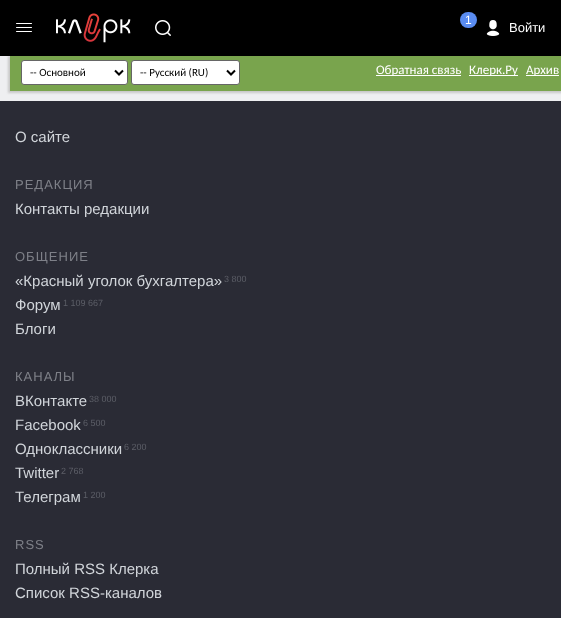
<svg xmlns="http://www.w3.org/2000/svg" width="561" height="618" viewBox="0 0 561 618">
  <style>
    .t1 { font: 12px Liberation Sans; fill: #fff; }
    .t2 { font: 13px Liberation Sans; fill: #fff; }
    .t3 { font: 11px Carlito; fill: #000; }
    .t4 { font: 13px Carlito; fill: #fff; }
    .t5 { font: 15px Liberation Sans; fill: #d1d5da; }
    .t6 { font: 13px Liberation Sans; letter-spacing: 1px; fill: #7e8088; }
    .t7 { font: 9px Liberation Sans; fill: #5c5e67; }
  </style>
  <rect width="100%" height="100%" fill="#eeeff1"/>
  <rect x="8" y="56" width="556" height="37" fill="#c8c8c8" filter="blur(1px)"/>
  <rect x="0" y="0" width="561" height="56" fill="#000"/>
  <rect x="16" y="23" width="16" height="1" rx="0.5" fill="#fff"/>
  <rect x="16" y="27" width="16" height="1" rx="0.5" fill="#fff"/>
  <rect x="16" y="31" width="16" height="1" rx="0.5" fill="#fff"/>
  <image x="56" y="13" width="75" height="30" href="images/1.png"/>
  <image x="155" y="20" width="16" height="16" href="images/2.png"/>
  <rect x="460" y="12" width="17" height="16" rx="8" fill="#5a8cf1"/>
  <text x="465" y="24" class="t1">1</text>
  <image x="486" y="20" width="14" height="16" href="images/3.png"/>
  <text x="509" y="32" class="t2">Войти</text>
  <rect x="10" y="56" width="551" height="35" fill="#79a44d"/>
  <rect x="21.5" y="60.5" width="106" height="24" rx="2.5" fill="#fff" stroke="#666"/>
  <path d="M115 70.5L119 74.5L123 70.5" fill="none" stroke="#000" stroke-width="2"/>
  <text x="30" y="76" class="t3">-- Основной</text>
  <rect x="131.5" y="60.5" width="108" height="24" rx="2.5" fill="#fff" stroke="#666"/>
  <path d="M227 70.5L231 74.5L235 70.5" fill="none" stroke="#000" stroke-width="2"/>
  <text x="140" y="76" class="t3">-- Русский (RU)</text>
  <rect x="376" y="75" width="85" height="1" fill="#fff"/>
  <text x="376" y="74" class="t4">Обратная связь</text>
  <rect x="469" y="75" width="49" height="1" fill="#fff"/>
  <text x="469" y="74" class="t4">Клерк.Ру</text>
  <rect x="526" y="75" width="33" height="1" fill="#fff"/>
  <text x="526" y="74" class="t4">Архив</text>
  <rect x="0" y="101" width="561" height="517" fill="#2a2b35"/>
  <text x="15" y="142" class="t5">О сайте</text>
  <text x="15" y="189" class="t6">РЕДАКЦИЯ</text>
  <text x="15" y="214" class="t5">Контакты редакции</text>
  <text x="15" y="261" class="t6">ОБЩЕНИЕ</text>
  <text x="15" y="286" class="t5">«Красный уголок бухгалтера»</text>
  <text x="224" y="282" class="t7">3 800</text>
  <text x="15" y="310" class="t5">Форум</text>
  <text x="63" y="306" class="t7">1 109 667</text>
  <text x="15" y="334" class="t5">Блоги</text>
  <text x="15" y="381" class="t6">КАНАЛЫ</text>
  <text x="15" y="406" class="t5">ВКонтакте</text>
  <text x="89" y="402" class="t7">38 000</text>
  <text x="15" y="430" class="t5">Facebook</text>
  <text x="83" y="426" class="t7">6 500</text>
  <text x="15" y="454" class="t5">Одноклассники</text>
  <text x="124" y="450" class="t7">6 200</text>
  <text x="15" y="478" class="t5">Twitter</text>
  <text x="61" y="474" class="t7">2 768</text>
  <text x="15" y="502" class="t5">Телеграм</text>
  <text x="83" y="498" class="t7">1 200</text>
  <text x="15" y="549" class="t6">RSS</text>
  <text x="15" y="574" class="t5">Полный RSS Клерка</text>
  <text x="15" y="598" class="t5">Список RSS-каналов</text>
</svg>
